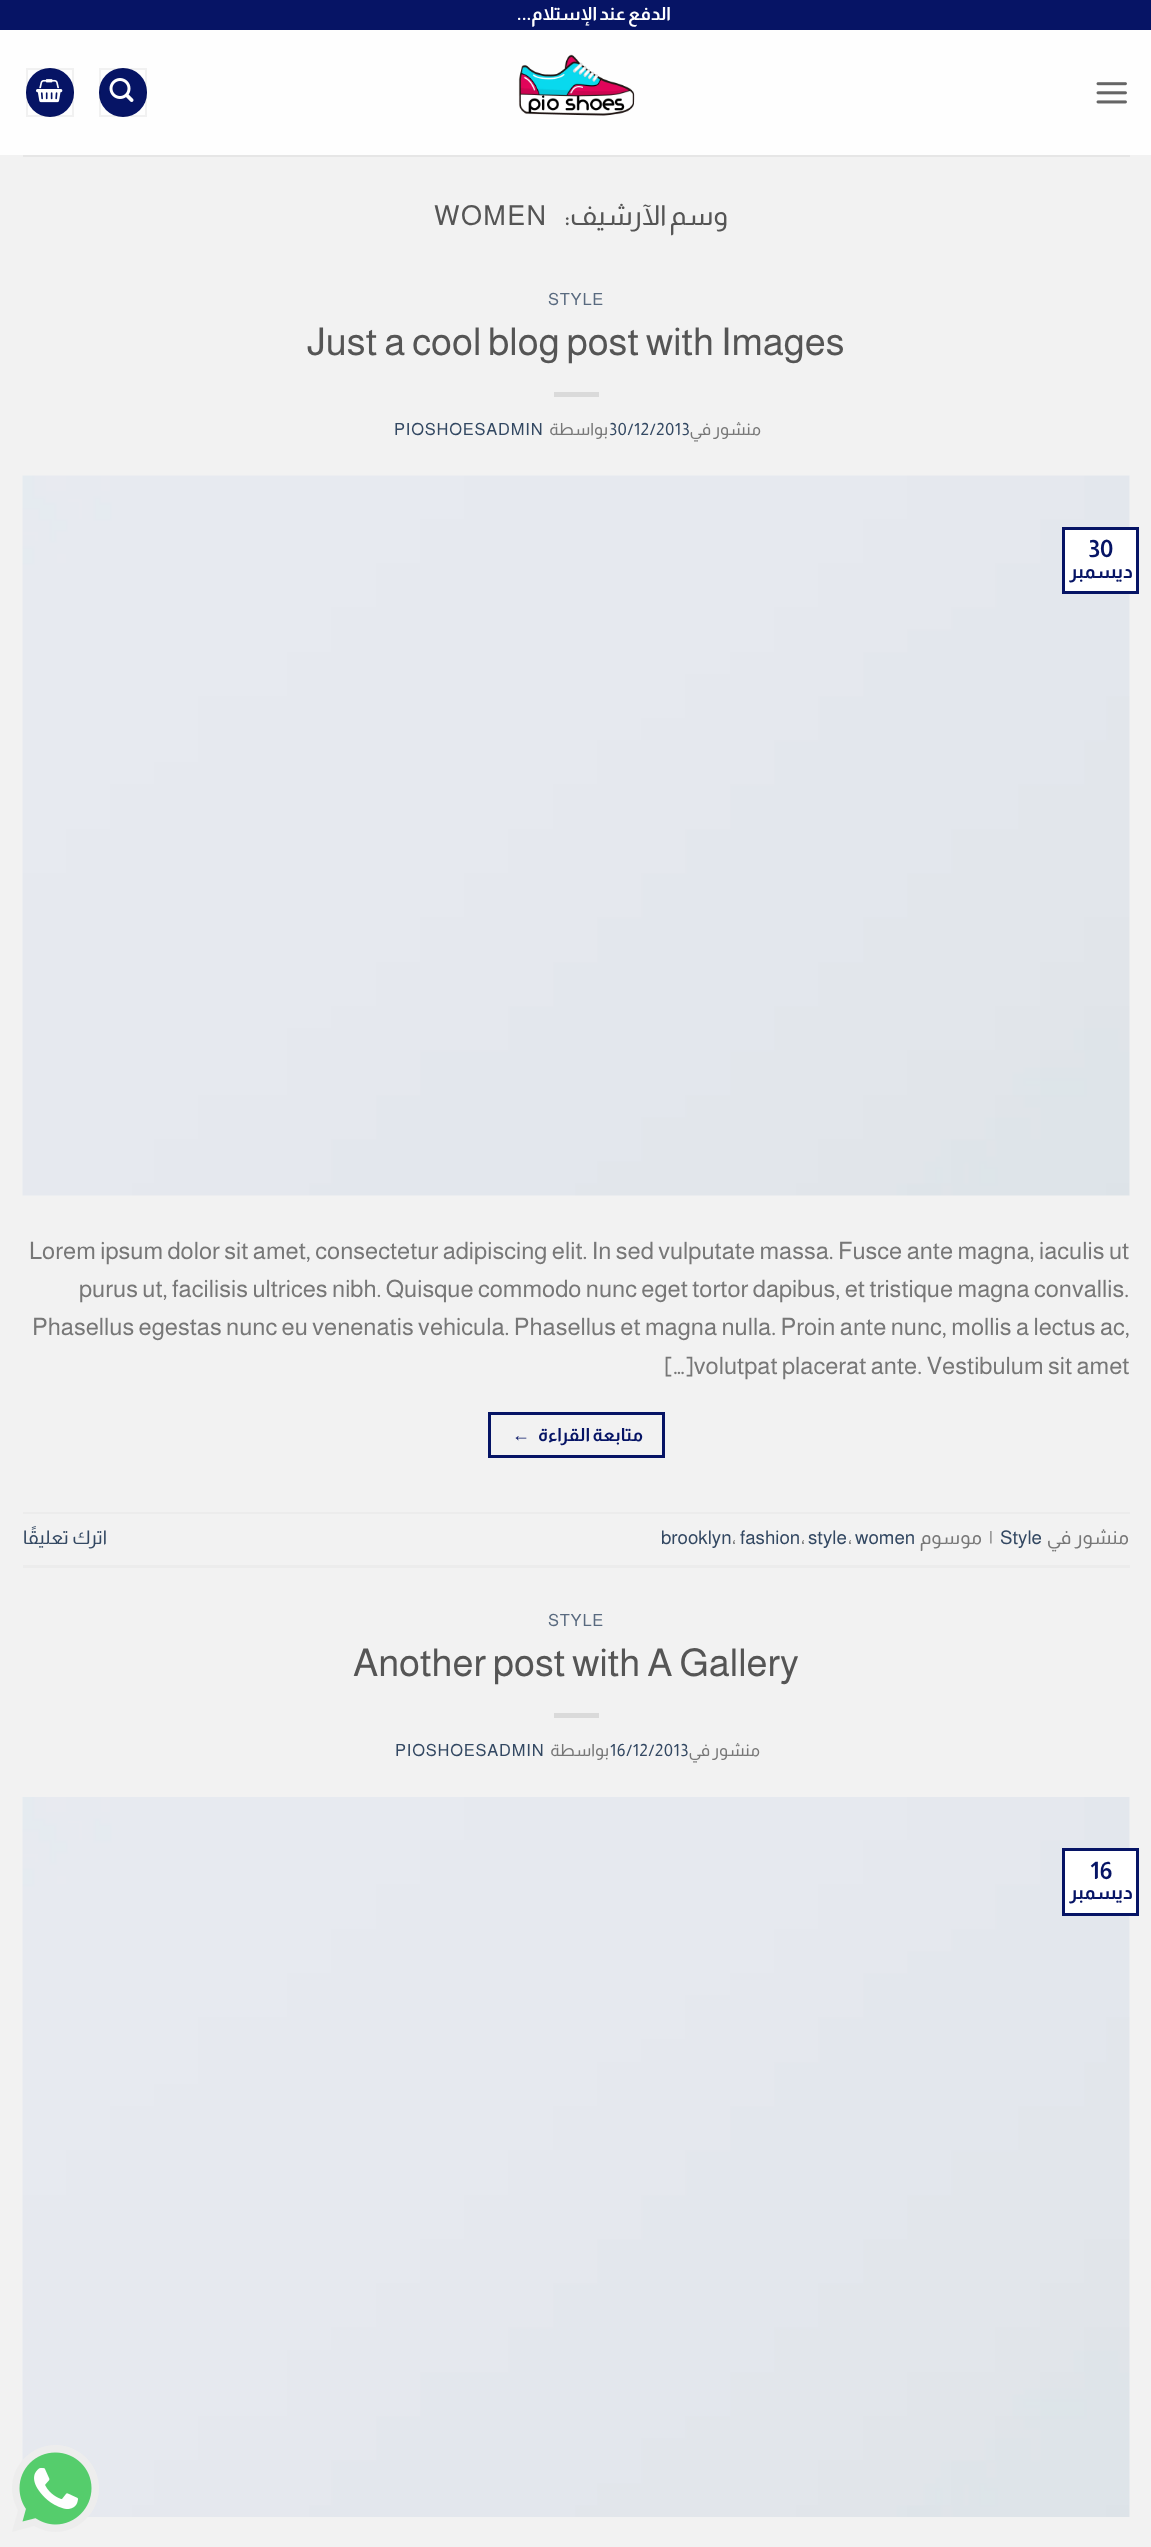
<svg xmlns="http://www.w3.org/2000/svg" width="1151" height="2547" viewBox="0 0 1151 2547">
  <style>
    .t1 { font: bold 18px Almarai; letter-spacing: 0.9px; direction: rtl; fill: #fff; }
    .t2 { font: 27.5px Almarai; letter-spacing: 1.4px; fill: #555; }
    .t3 { font: 27.5px Almarai; letter-spacing: 1.4px; direction: rtl; fill: #555; }
    .t4 { font: 16.75px Almarai; letter-spacing: 0.8px; fill: #596a7f; }
    .t5 { font: 38.4px Almarai; fill: #555; }
    .t6 { font: 16.75px Almarai; letter-spacing: 0.8px; fill: #334862; }
    .t7 { font: 16.75px Almarai; letter-spacing: 0.8px; direction: rtl; fill: #777; }
    .t8 { font: bold 24px Almarai; fill: #061465; }
    .t9 { font: bold 19px Almarai; direction: rtl; fill: #061465; }
    .t10 { font: 24px Almarai; fill: #777; }
    .t11 { font: bold 18px Liberation Sans; letter-spacing: 0.5px; fill: #061465; }
    .t12 { font: bold 18px Almarai; letter-spacing: 0.5px; direction: rtl; fill: #061465; }
    .t13 { font: 19px Almarai; direction: rtl; fill: #334862; }
    .t14 { font: 19px Almarai; fill: #334862; }
    .t15 { font: 19px Almarai; fill: #777; }
    .t16 { font: 19px Almarai; direction: rtl; fill: #777; }
  </style>
  <rect width="100%" height="100%" fill="#f2f2f2"/>
  <rect x="0" y="0" width="1151" height="30" fill="#061465"/>
  <text x="671" y="20" word-spacing="-1" class="t1">الدفع عند الإستلام...</text>
  <rect x="0" y="30" width="1151" height="125" fill="#fefefe"/>
  <rect x="26" y="68" width="48" height="49" rx="24" fill="#061465"/>
  <rect x="27" y="69" width="46" height="47" fill="none" stroke="#0000000d" stroke-width="2"/>
  <image x="36" y="79" width="27" height="24" href="images/1.png"/>
  <rect x="99" y="68" width="48" height="49" rx="24" fill="#061465"/>
  <rect x="100" y="69" width="46" height="47" fill="none" stroke="#0000000d" stroke-width="2"/>
  <image x="109" y="78" width="25" height="24" href="images/2.png"/>
  <image x="518" y="54" width="117" height="62" href="images/3.png"/>
  <image x="1096" y="82" width="31" height="22" href="images/4.png"/>
  <rect x="23" y="155" width="1107" height="2" fill="#e6e6e6"/>
  <text x="434" y="225" class="t2">WOMEN</text>
  <text x="728" y="225" word-spacing="-2" class="t3">وسم الآرشيف:</text>
  <text x="548" y="305" class="t4">STYLE</text>
  <text x="307" y="355" class="t5">Just a cool blog post with Images</text>
  <rect x="554" y="392" width="45" height="5" fill="#dadada"/>
  <text x="394" y="435" class="t6">PIOSHOESADMIN</text>
  <text x="608" y="435" class="t7">بواسطة</text>
  <text x="761" y="435" word-spacing="-1" class="t7">منشور في</text>
  <text x="609" y="435" class="t6">30/12/2013</text>
  <image x="22" y="475" width="1108" height="721" href="images/5.png"/>
  <rect x="1063.5" y="528.5" width="74" height="64" fill="#fff" stroke="#061465" stroke-width="3"/>
  <text x="1088" y="557" class="t8">30</text>
  <text x="1133" y="578" class="t9">ديسمبر</text>
  <text x="29" y="1259" class="t10">Lorem ipsum dolor sit amet, consectetur adipiscing elit. In sed vulputate massa. Fusce ante magna, iaculis ut</text>
  <text x="79" y="1297" class="t10">purus ut, facilisis ultrices nibh. Quisque commodo nunc eget tortor dapibus, et tristique magna convallis.</text>
  <text x="32" y="1335" class="t10">Phasellus egestas nunc eu venenatis vehicula. Phasellus et magna nulla. Proin ante nunc, mollis a lectus ac,</text>
  <text x="664" y="1374" class="t10">[…]volutpat placerat ante. Vestibulum sit amet</text>
  <rect x="489.5" y="1413.5" width="174" height="43" fill="none" stroke="#061465" stroke-width="3"/>
  <text x="512" y="1441" class="t11">←</text>
  <text x="643" y="1441" word-spacing="-1" class="t12">متابعة القراءة</text>
  <rect x="23" y="1512" width="1107" height="2" fill="#ececec"/>
  <rect x="23" y="1565" width="1107" height="3" fill="#ececec"/>
  <text x="107" y="1544" class="t13">اترك تعليقًا</text>
  <text x="661" y="1544" class="t14">brooklyn</text>
  <text x="732" y="1544" class="t15">،</text>
  <text x="740" y="1544" class="t14">fashion</text>
  <text x="801" y="1544" class="t15">،</text>
  <text x="808" y="1544" class="t14">style</text>
  <text x="848" y="1544" class="t15">،</text>
  <text x="855" y="1544" class="t14">women</text>
  <text x="982" y="1544" class="t16">موسوم</text>
  <text x="989" y="1544" class="t15">|</text>
  <text x="1000" y="1544" class="t14">Style</text>
  <text x="1129" y="1544" class="t16">منشور في</text>
  <text x="548" y="1626" class="t4">STYLE</text>
  <text x="353" y="1676" class="t5">Another post with A Gallery</text>
  <rect x="554" y="1713" width="45" height="5" fill="#dadada"/>
  <text x="395" y="1756" class="t6">PIOSHOESADMIN</text>
  <text x="609" y="1756" class="t7">بواسطة</text>
  <text x="760" y="1756" word-spacing="-1" class="t7">منشور في</text>
  <text x="610" y="1756" class="t6">16/12/2013</text>
  <image x="22" y="1797" width="1108" height="720" href="images/6.png"/>
  <rect x="1063.5" y="1849.5" width="74" height="65" fill="#fff" stroke="#061465" stroke-width="3"/>
  <text x="1090" y="1879" class="t8">16</text>
  <text x="1133" y="1899" class="t9">ديسمبر</text>
  <image x="12" y="2445" width="87" height="87" href="images/7.png"/>
</svg>
